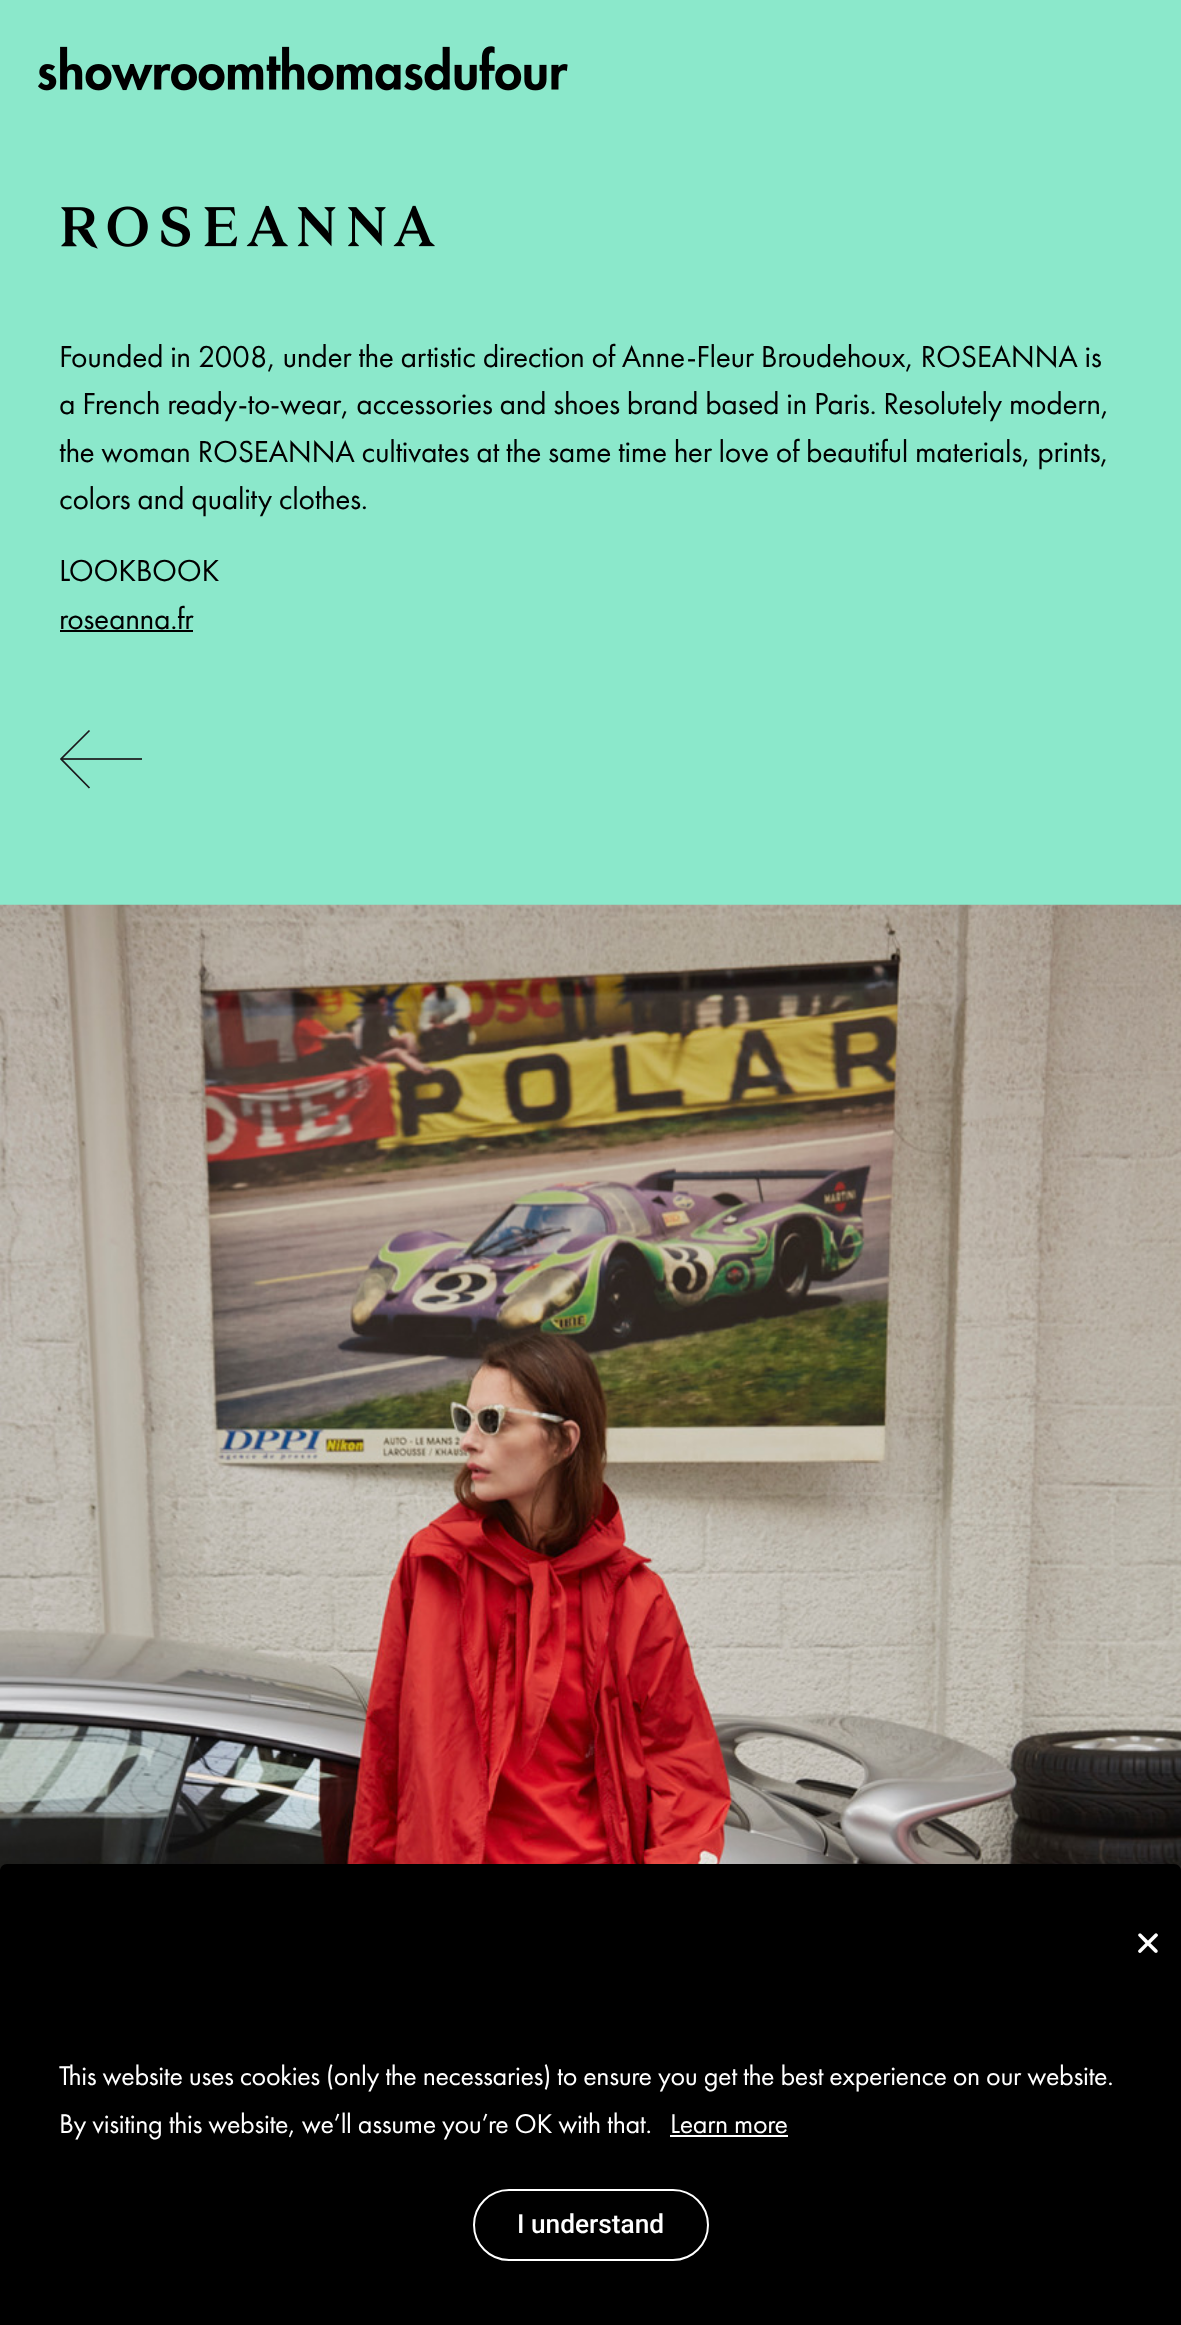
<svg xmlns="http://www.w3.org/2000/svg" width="1181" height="2325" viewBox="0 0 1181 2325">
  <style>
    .t1 { font: 31.5px Futura PT; letter-spacing: -0.35px; fill: #000; }
    .t2 { font: 28px Futura PT; letter-spacing: -0.35px; fill: #fff; }
    .t3 { font: 500 26.25px Roboto; fill: #fff; }
  </style>
  <rect width="100%" height="100%" fill="#8be8cb"/>
  <image x="38" y="46" width="530" height="45" href="images/1.png"/>
  <image x="61" y="205" width="374" height="44" href="images/2.png"/>
  <text x="59" y="367" class="t1">Founded in 2008, under the artistic direction of Anne-Fleur Broudehoux, ROSEANNA is</text>
  <text x="59" y="414" class="t1">a French ready-to-wear, accessories and shoes brand based in Paris. Resolutely modern,</text>
  <text x="59" y="462" class="t1">the woman ROSEANNA cultivates at the same time her love of beautiful materials, prints,</text>
  <text x="59" y="509" class="t1">colors and quality clothes.</text>
  <text x="59" y="581" class="t1">LOOKBOOK</text>
  <text x="59" y="629" class="t1">roseanna.fr</text>
  <rect x="60" y="630" width="133" height="2" fill="#000"/>
  <path d="M89.5 788L61 759L89.5 730.5" fill="none" stroke="#1a171b" stroke-width="1.7"/>
  <rect x="61" y="758" width="81" height="2" fill="#1a171bd9"/>
  <image x="0" y="904" width="1181" height="967" href="images/3.png"/>
  <path d="M7 1864H1174C1178 1864 1181 1867 1181 1871V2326H0V1871C0 1867 3 1864 7 1864Z" fill="#000"/>
  <image x="1138" y="1933" width="20" height="20" href="images/4.png"/>
  <text x="59" y="2085" class="t2">This website uses cookies (only the necessaries) to ensure you get the best experience on our website.</text>
  <text x="59" y="2133" class="t2">By visiting this website, we’ll assume you’re OK with that.</text>
  <text x="670" y="2133" class="t2">Learn more</text>
  <rect x="670" y="2135" width="118" height="2" fill="#fff"/>
  <rect x="474" y="2190" width="234" height="70" rx="35" fill="none" stroke="#fff" stroke-width="2"/>
  <text x="517" y="2233" class="t3">I understand</text>
</svg>
